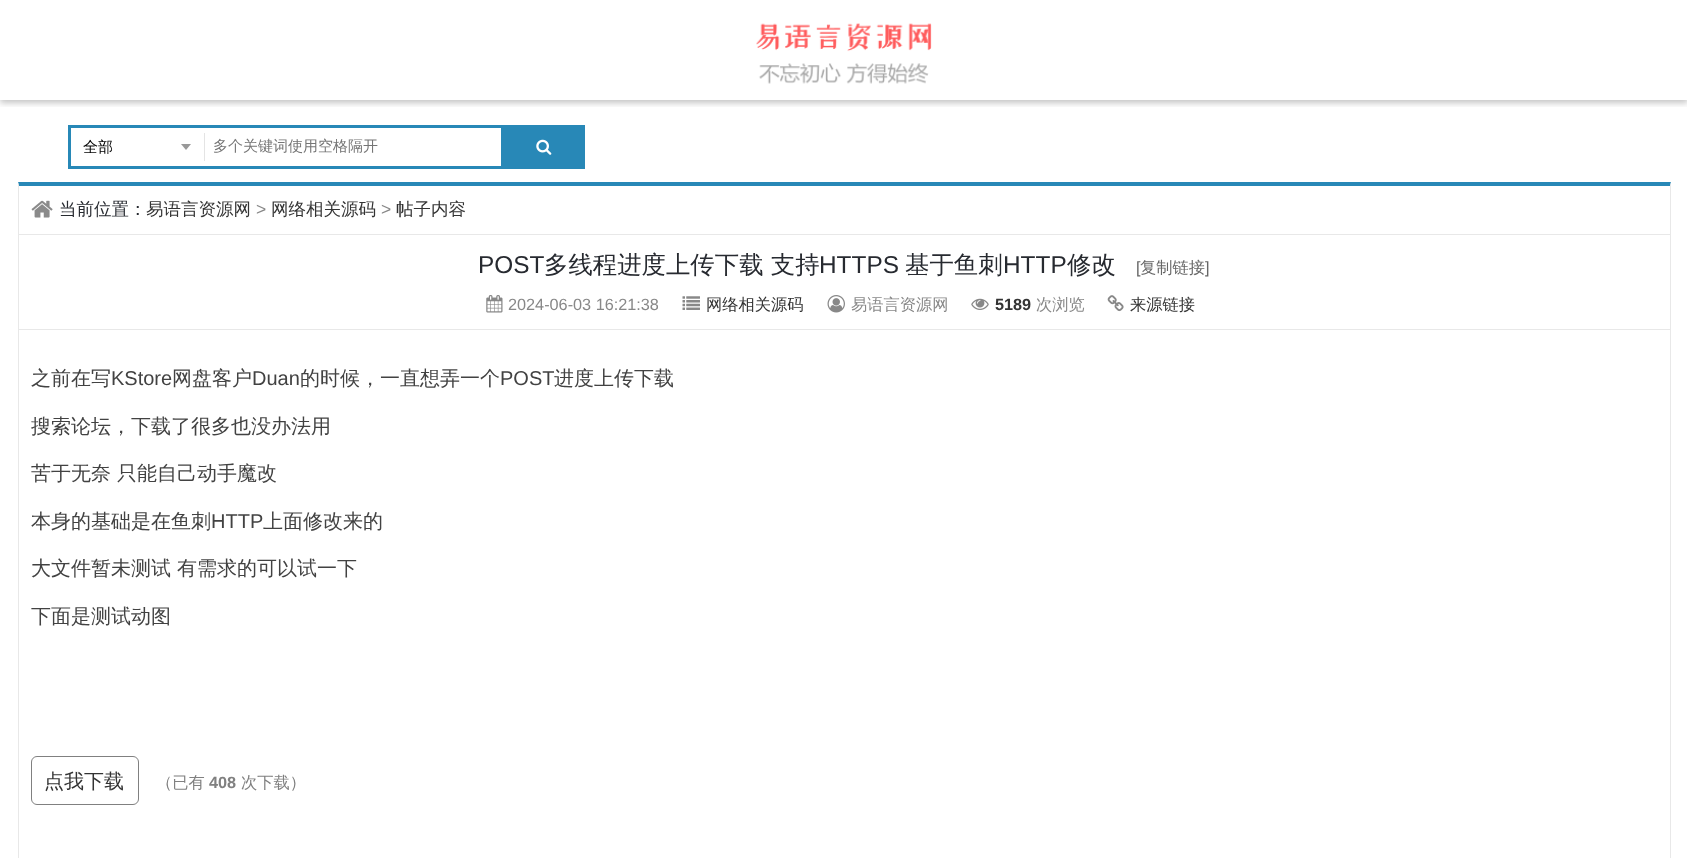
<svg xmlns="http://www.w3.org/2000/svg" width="1687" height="858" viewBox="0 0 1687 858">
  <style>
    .t1 { font: 500 15px WenQuanYi Zen Hei; fill: #000; }
    .t2 { font: 500 15px WenQuanYi Zen Hei; fill: #757575; }
    .t3 { font: 500 17.5px WenQuanYi Zen Hei; fill: #272a30; }
    .t4 { font: 500 17.5px WenQuanYi Zen Hei; fill: #333; }
    .t5 { font: 17.5px Liberation Sans; fill: #888; }
    .t6 { font: 24.4px Liberation Sans; fill: #272a30; }
    .t7 { font: 500 24.4px WenQuanYi Zen Hei; fill: #272a30; }
    .t8 { font: 16.25px Liberation Sans; fill: #666; }
    .t9 { font: 500 16.25px WenQuanYi Zen Hei; fill: #666; }
    .t10 { font: 16.25px Liberation Sans; fill: #888; }
    .t11 { font: 500 16.25px WenQuanYi Zen Hei; fill: #333; }
    .t12 { font: 500 16.25px WenQuanYi Zen Hei; fill: #888; }
    .t13 { font: bold 16.25px Liberation Sans; fill: #333; }
    .t14 { font: 500 20px WenQuanYi Zen Hei; fill: #424242; }
    .t15 { font: 20px Liberation Sans; fill: #424242; }
    .t16 { font: 500 20px WenQuanYi Zen Hei; fill: #333; }
    .t17 { font: 500 16.25px WenQuanYi Zen Hei; fill: #808080; }
    .t18 { font: bold 16.25px Liberation Sans; fill: #808080; }
  </style>
  <defs>
    <clipPath id="clip1"><rect x="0" y="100" width="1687" height="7"/></clipPath>
  </defs>
  <rect width="100%" height="100%" fill="#fff"/>
  <g clip-path="url(#clip1)">
    <rect x="0" y="-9" width="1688" height="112" fill="#0000003b" filter="blur(3px)"/>
  </g>
  <image x="756" y="23" width="176" height="61" href="images/1.png"/>
  <rect x="198" y="125" width="306" height="3" fill="#2888b7"/>
  <rect x="68" y="125" width="136" height="3" fill="#2788b7"/>
  <rect x="501" y="125" width="84" height="44" fill="#2888b7"/>
  <rect x="198" y="166" width="306" height="3" fill="#2888b7"/>
  <rect x="68" y="166" width="136" height="3" fill="#2788b7"/>
  <rect x="68" y="125" width="3" height="44" fill="#2788b7"/>
  <text x="83" y="152" class="t1">全部</text>
  <path d="M181 144H191L186 150Z" fill="#999"/>
  <rect x="204" y="133" width="1" height="28" fill="#e4e4e4"/>
  <text x="213" y="151" class="t2">多个关键词使用空格隔开</text>
  <image x="536" y="139" width="16" height="16" href="images/2.png"/>
  <path d="M18 182H1671L1670 186H19Z" fill="#2888b7"/>
  <path d="M1671 182V235L1670 234V186Z" fill="#e8e8e8"/>
  <rect x="18" y="234" width="1653" height="1" fill="#e8e8e8"/>
  <path d="M18 235V182L19 186V234Z" fill="#e8e8e8"/>
  <image x="31" y="200" width="22" height="18" href="images/3.png"/>
  <text x="59" y="215" class="t3">当前位置：</text>
  <text x="146" y="215" class="t4">易语言资源网</text>
  <text x="256" y="215" class="t5">&gt;</text>
  <text x="271" y="215" class="t4">网络相关源码</text>
  <text x="381" y="215" class="t5">&gt;</text>
  <text x="396" y="215" class="t4">帖子内容</text>
  <rect x="1670" y="235" width="1" height="623" fill="#e8e8e8"/>
  <rect x="18" y="329" width="1653" height="1" fill="#e8e8e8"/>
  <rect x="18" y="235" width="1" height="623" fill="#e8e8e8"/>
  <text x="478" y="273" class="t6">POST</text>
  <text x="544" y="273" class="t7">多线程进度上传下载 支持</text>
  <text x="819" y="273" class="t6">HTTPS</text>
  <text x="905" y="273" class="t7">基于鱼刺</text>
  <text x="1003" y="273" class="t6">HTTP</text>
  <text x="1067" y="273" class="t7">修改</text>
  <text x="1136" y="273" class="t8">[</text>
  <text x="1140" y="273" class="t9">复制链接</text>
  <text x="1205" y="273" class="t8">]</text>
  <image x="486" y="295" width="17" height="18" href="images/4.png"/>
  <text x="508" y="310" class="t10">2024-06-03 16:21:38</text>
  <image x="682" y="296" width="18" height="14" href="images/5.png"/>
  <text x="706" y="310" class="t11">网络相关源码</text>
  <image x="827" y="295" width="18" height="18" href="images/6.png"/>
  <text x="851" y="310" class="t12">易语言资源网</text>
  <image x="971" y="298" width="18" height="12" href="images/7.png"/>
  <text x="995" y="310" class="t13">5189</text>
  <text x="1036" y="310" class="t12">次浏览</text>
  <image x="1107" y="295" width="17" height="17" href="images/8.png"/>
  <text x="1130" y="310" class="t11">来源链接</text>
  <text x="31" y="385" class="t14">之前在写</text>
  <text x="111" y="385" class="t15">KStore</text>
  <text x="172" y="385" class="t14">网盘客户</text>
  <text x="252" y="385" class="t15">Duan</text>
  <text x="300" y="385" class="t14">的时候，一直想弄一个</text>
  <text x="500" y="385" class="t15">POST</text>
  <text x="554" y="385" class="t14">进度上传下载</text>
  <text x="31" y="433" class="t14">搜索论坛，下载了很多也没办法用</text>
  <text x="31" y="480" class="t14">苦于无奈 只能自己动手魔改</text>
  <text x="31" y="528" class="t14">本身的基础是在鱼刺</text>
  <text x="211" y="528" class="t15">HTTP</text>
  <text x="263" y="528" class="t14">上面修改来的</text>
  <text x="31" y="575" class="t14">大文件暂未测试 有需求的可以试一下</text>
  <text x="31" y="623" class="t14">下面是测试动图</text>
  <rect x="31.5" y="756.5" width="107" height="48" rx="5.5" fill="none" stroke="#808080"/>
  <text x="44" y="788" class="t16">点我下载</text>
  <text x="156" y="788" class="t17">（已有</text>
  <text x="209" y="788" class="t18">408</text>
  <text x="241" y="788" class="t17">次下载）</text>
</svg>
